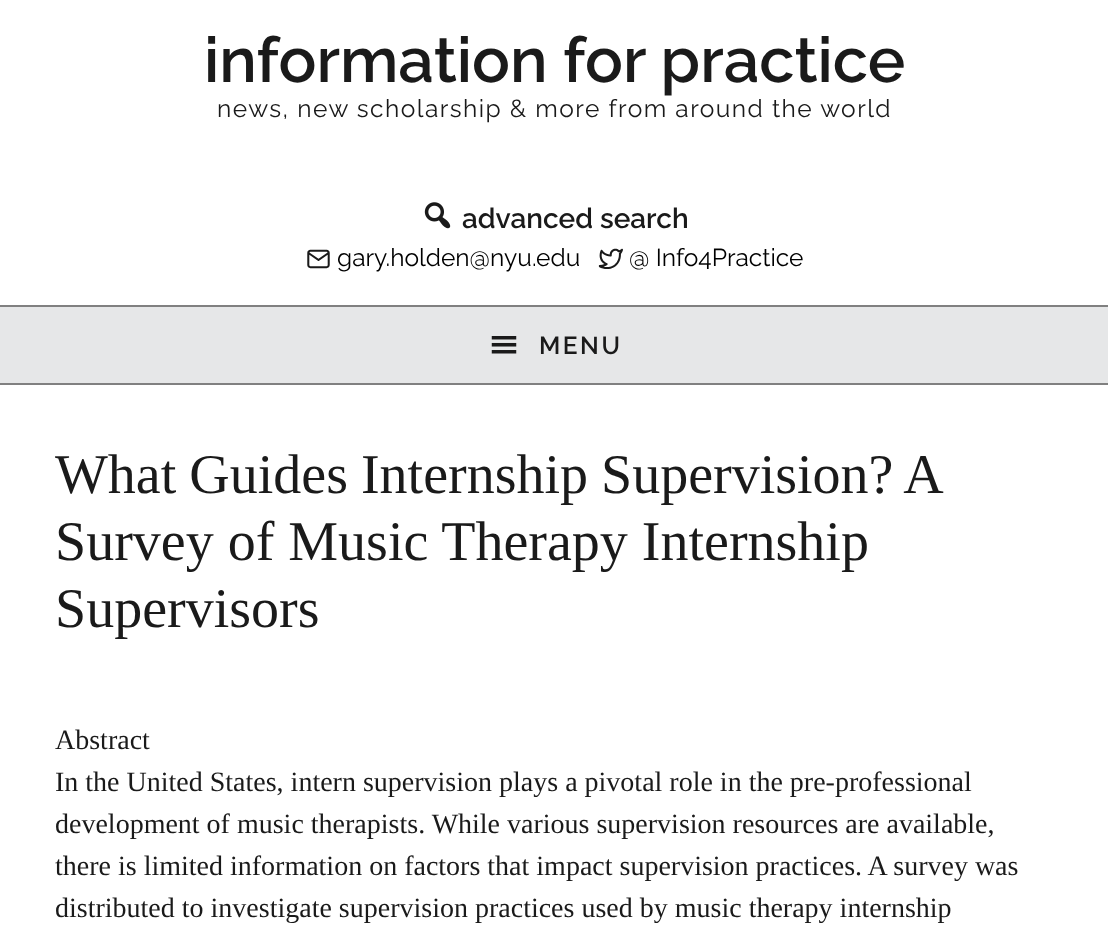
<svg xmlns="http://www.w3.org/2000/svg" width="1108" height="932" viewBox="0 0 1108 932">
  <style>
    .t1 { font: 600 63px Raleway; fill: #1a1a1a; }
    .t2 { font: 24.5px Raleway; letter-spacing: 1.45px; fill: #1a1a1a; }
    .t3 { font: 600 28px Raleway; fill: #1a1a1a; }
    .t4 { font: 24.5px Raleway; fill: #000; }
    .t5 { font: 600 24.5px Raleway; letter-spacing: 2.5px; fill: #1a1a1a; }
    .t6 { font: 56px Liberation Serif; fill: #1a1a1a; }
    .t7 { font: 28px Liberation Serif; fill: #1a1a1a; }
  </style>
  <rect width="100%" height="100%" fill="#fff"/>
  <text x="204" y="82" class="t1">information for practice</text>
  <text x="217" y="117" class="t2">news, new scholarship &amp; more from around the world</text>
  <image x="424" y="202" width="27" height="27" href="images/1.png"/>
  <text x="462" y="228" class="t3">advanced search</text>
  <image x="307" y="249" width="23" height="20" href="images/2.png"/>
  <text x="337" y="266" class="t4">gary.holden@nyu.edu</text>
  <image x="598" y="248" width="25" height="21" href="images/3.png"/>
  <text x="629" y="266" class="t4">@ Info4Practice</text>
  <rect x="0" y="307" width="1108" height="76" fill="#e6e7e8"/>
  <rect x="0" y="305" width="1108" height="2" fill="#808080"/>
  <rect x="0" y="383" width="1108" height="2" fill="#808080"/>
  <image x="491" y="336" width="26" height="18" href="images/4.png"/>
  <text x="539" y="354" class="t5">MENU</text>
  <text x="55" y="493" word-spacing="-1" class="t6">What Guides Internship Supervision? A</text>
  <text x="55" y="560" class="t6">Survey of Music Therapy Internship</text>
  <text x="55" y="627" class="t6">Supervisors</text>
  <text x="55" y="749" class="t7">Abstract</text>
  <text x="55" y="791" class="t7">In the United States, intern supervision plays a pivotal role in the pre-professional</text>
  <text x="55" y="833" class="t7">development of music therapists. While various supervision resources are available,</text>
  <text x="55" y="875" class="t7">there is limited information on factors that impact supervision practices. A survey was</text>
  <text x="55" y="917" class="t7">distributed to investigate supervision practices used by music therapy internship</text>
</svg>
